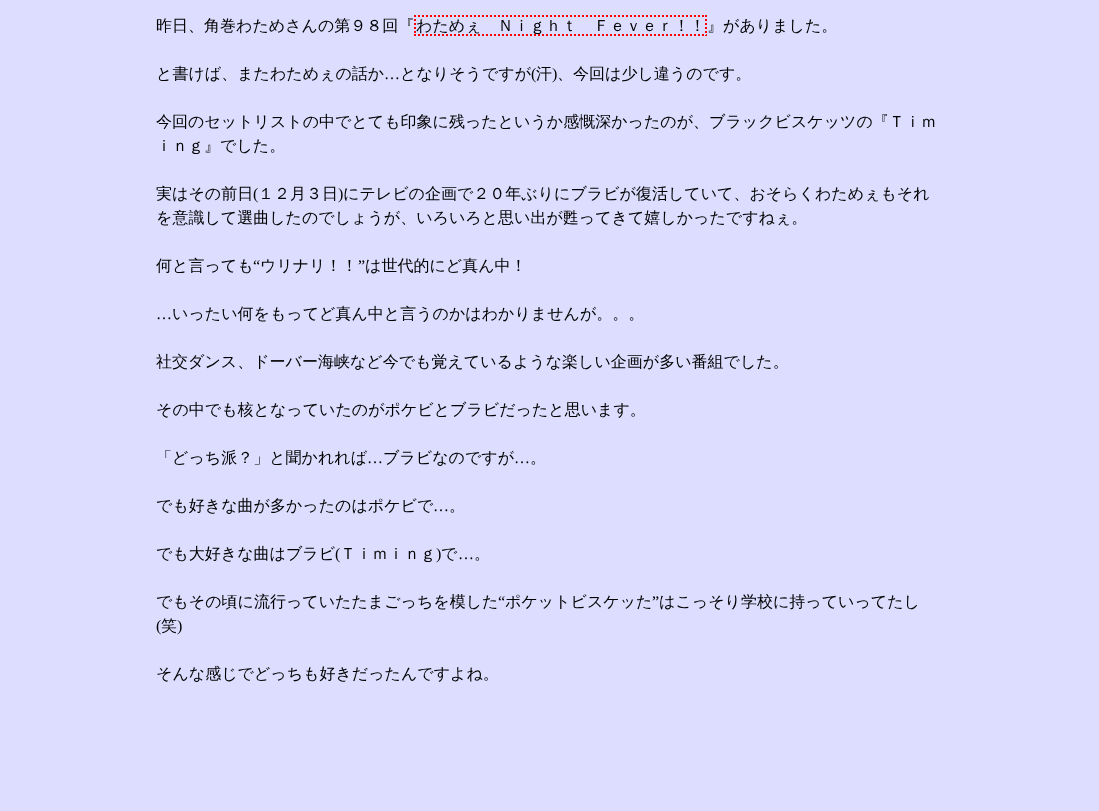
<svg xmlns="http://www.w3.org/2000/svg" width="1099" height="811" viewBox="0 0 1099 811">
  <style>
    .t1 { font: 500 16px WenQuanYi Zen Hei; fill: #000; }
    .t2 { font: 16px Liberation Serif; fill: #000; }
  </style>
  <rect width="100%" height="100%" fill="#ddf"/>
  <text x="156" y="31" class="t1">昨日、角巻わためさんの第９８回『</text>
  <path d="M414 16H707" fill="none" stroke="#f00" stroke-width="2" stroke-dasharray="2 2"/>
  <path d="M706 15V36" fill="none" stroke="#f00" stroke-width="2" stroke-dasharray="2 2"/>
  <path d="M414 35H707" fill="none" stroke="#f00" stroke-width="2" stroke-dasharray="2 2"/>
  <text x="416" y="31" class="t1">わためぇ　Ｎｉｇｈｔ　Ｆｅｖｅｒ！！</text>
  <path d="M415 15V36" fill="none" stroke="#f00" stroke-width="2" stroke-dasharray="2 2"/>
  <text x="707" y="31" class="t1">』がありました。</text>
  <text x="156" y="79" class="t1">と書けば、またわためぇの話か</text>
  <text x="384" y="79" class="t2">…</text>
  <text x="400" y="79" class="t1">となりそうですが</text>
  <text x="531" y="79" class="t2">(</text>
  <text x="536" y="79" class="t1">汗</text>
  <text x="552" y="79" class="t2">)</text>
  <text x="557" y="79" class="t1">、今回は少し違うのです。</text>
  <text x="156" y="127" class="t1">今回のセットリストの中でとても印象に残ったというか感慨深かったのが、ブラックビスケッツの『Ｔｉｍ</text>
  <text x="156" y="151" class="t1">ｉｎｇ』でした。</text>
  <text x="156" y="199" class="t1">実はその前日</text>
  <text x="253" y="199" class="t2">(</text>
  <text x="258" y="199" class="t1">１２月３日</text>
  <text x="338" y="199" class="t2">)</text>
  <text x="343" y="199" class="t1">にテレビの企画で２０年ぶりにブラビが復活していて、おそらくわためぇもそれ</text>
  <text x="156" y="223" class="t1">を意識して選曲したのでしょうが、いろいろと思い出が甦ってきて嬉しかったですねぇ。</text>
  <text x="156" y="271" class="t1">何と言っても</text>
  <text x="253" y="271" class="t2">“</text>
  <text x="260" y="271" class="t1">ウリナリ！！</text>
  <text x="358" y="271" class="t2">”</text>
  <text x="365" y="271" class="t1">は世代的にど真ん中！</text>
  <text x="156" y="319" class="t2">…</text>
  <text x="172" y="319" class="t1">いったい何をもってど真ん中と言うのかはわかりませんが。。。</text>
  <text x="156" y="367" class="t1">社交ダンス、ドーバー海峡など今でも覚えているような楽しい企画が多い番組でした。</text>
  <text x="156" y="415" class="t1">その中でも核となっていたのがポケビとブラビだったと思います。</text>
  <text x="156" y="463" class="t1">「どっち派？」と聞かれれば</text>
  <text x="367" y="463" class="t2">…</text>
  <text x="383" y="463" class="t1">ブラビなのですが</text>
  <text x="514" y="463" class="t2">…</text>
  <text x="530" y="463" class="t1">。</text>
  <text x="156" y="511" class="t1">でも好きな曲が多かったのはポケビで</text>
  <text x="433" y="511" class="t2">…</text>
  <text x="449" y="511" class="t1">。</text>
  <text x="156" y="559" class="t1">でも大好きな曲はブラビ</text>
  <text x="335" y="559" class="t2">(</text>
  <text x="340" y="559" class="t1">Ｔｉｍｉｎｇ</text>
  <text x="436" y="559" class="t2">)</text>
  <text x="441" y="559" class="t1">で</text>
  <text x="458" y="559" class="t2">…</text>
  <text x="474" y="559" class="t1">。</text>
  <text x="156" y="607" class="t1">でもその頃に流行っていたたまごっちを模した</text>
  <text x="498" y="607" class="t2">“</text>
  <text x="505" y="607" class="t1">ポケットビスケッた</text>
  <text x="652" y="607" class="t2">”</text>
  <text x="659" y="607" class="t1">はこっそり学校に持っていってたし</text>
  <text x="156" y="631" class="t2">(</text>
  <text x="161" y="631" class="t1">笑</text>
  <text x="177" y="631" class="t2">)</text>
  <text x="156" y="679" class="t1">そんな感じでどっちも好きだったんですよね。</text>
</svg>
